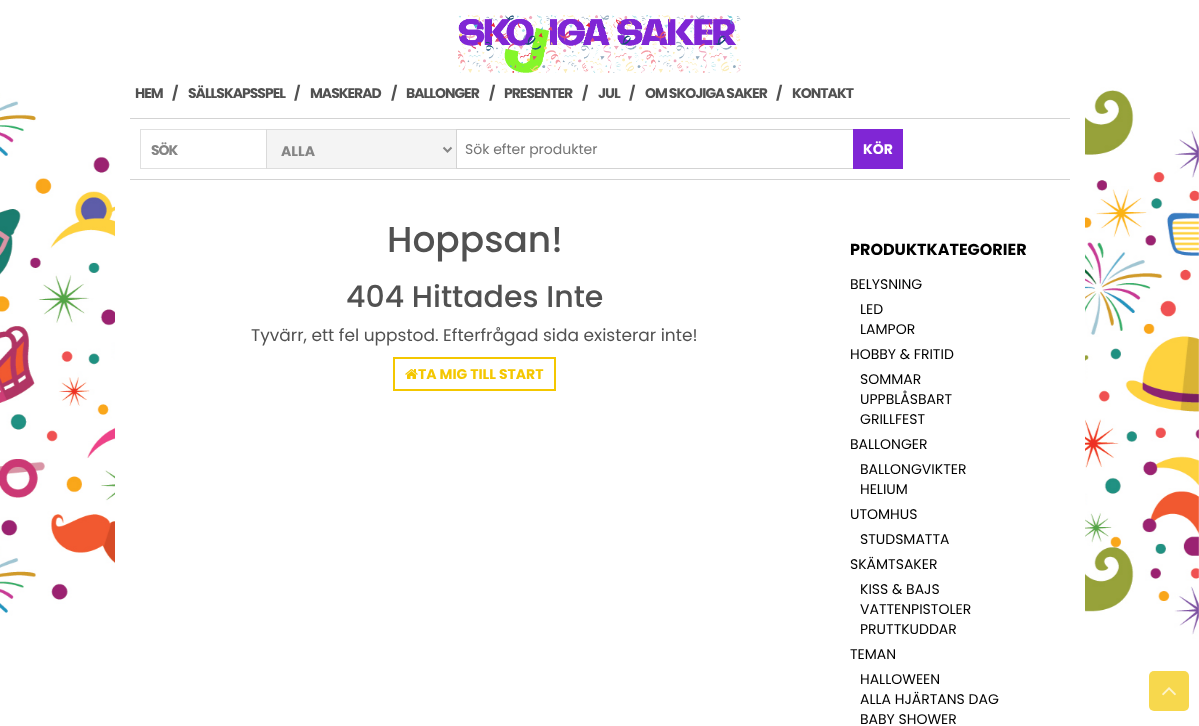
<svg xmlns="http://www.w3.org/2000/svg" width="1199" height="726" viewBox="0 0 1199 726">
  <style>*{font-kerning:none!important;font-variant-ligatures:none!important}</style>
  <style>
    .t1 { font: bold 14px Poppins; letter-spacing: -1px; fill: #515151; }
    .t2 { font: bold 14px Poppins; letter-spacing: -1px; fill: #858585; }
    .t3 { font: bold 14px Poppins; fill: #858585; }
    .t4 { font: 14px Poppins; fill: #757575; }
    .t5 { font: bold 14px Poppins; fill: #fff; }
    .t6 { font: 500 36px Poppins; fill: #515151; }
    .t7 { font: 500 30px Poppins; fill: #515151; }
    .t8 { font: 17px Poppins; fill: #515151; }
    .t9 { font: bold 14px Poppins; fill: #f4c700; }
    .t10 { font: bold 16px Poppins; fill: #000; }
    .t11 { font: 14px Poppins; fill: #000; }
  </style>
  <rect width="100%" height="100%" fill="#fff"/>
  <image x="0" y="0" width="1199" height="726" href="images/1.png"/>
  <rect x="115" y="0" width="970" height="726" fill="#fff"/>
  <image x="458" y="15" width="283" height="58" href="images/2.png"/>
  <rect x="130" y="118" width="940" height="1" fill="#d3d3d3"/>
  <text x="135" y="98" class="t1">HEM</text>
  <text x="172" y="98" class="t1">/</text>
  <text x="188" y="98" class="t1">SÄLLSKAPSSPEL</text>
  <text x="294" y="98" class="t1">/</text>
  <text x="310" y="98" class="t1">MASKERAD</text>
  <text x="391" y="98" class="t1">/</text>
  <text x="406" y="98" class="t1">BALLONGER</text>
  <text x="489" y="98" class="t1">/</text>
  <text x="504" y="98" class="t1">PRESENTER</text>
  <text x="582" y="98" class="t1">/</text>
  <text x="598" y="98" class="t1">JUL</text>
  <text x="629" y="98" class="t1">/</text>
  <text x="645" y="98" class="t1">OM SKOJIGA SAKER</text>
  <text x="776" y="98" class="t1">/</text>
  <text x="792" y="98" class="t1">KONTAKT</text>
  <rect x="130" y="179" width="940" height="1" fill="#d3d3d3"/>
  <rect x="140.5" y="129.5" width="126" height="39" fill="none" stroke="#e0e0e0"/>
  <text x="151" y="155" class="t2">SÖK</text>
  <rect x="266" y="129" width="190" height="40" fill="#efefefb3"/>
  <rect x="266.5" y="129.5" width="190" height="39" fill="none" stroke="#d3d3d3b3"/>
  <path d="M443.5 147.5L447.5 151.5L451.5 147.5" fill="none" stroke="#858585" stroke-width="2"/>
  <text x="281" y="156" class="t3">ALLA</text>
  <rect x="456.5" y="129.5" width="444" height="39" fill="none" stroke="#d3d3d3"/>
  <text x="465" y="154" class="t4">Sök efter produkter</text>
  <rect x="853" y="129" width="50" height="40" fill="#8026d5"/>
  <text x="863" y="154" class="t5">KÖR</text>
  <text x="387" y="252" class="t6">Hoppsan!</text>
  <text x="346" y="307" class="t7">404 Hittades Inte</text>
  <text x="251" y="341" class="t8">Tyvärr, ett fel uppstod. Efterfrågad sida existerar inte!</text>
  <rect x="394" y="358" width="161" height="32" fill="none" stroke="#f4c700" stroke-width="2"/>
  <image x="405" y="369" width="13" height="10" href="images/3.png"/>
  <text x="418" y="379" class="t9">TA MIG TILL START</text>
  <text x="850" y="255" class="t10">PRODUKTKATEGORIER</text>
  <text x="850" y="289" class="t11">BELYSNING</text>
  <text x="860" y="314" class="t11">LED</text>
  <text x="860" y="334" class="t11">LAMPOR</text>
  <text x="850" y="359" class="t11">HOBBY &amp; FRITID</text>
  <text x="860" y="384" class="t11">SOMMAR</text>
  <text x="860" y="404" class="t11">UPPBLÅSBART</text>
  <text x="860" y="424" class="t11">GRILLFEST</text>
  <text x="850" y="449" class="t11">BALLONGER</text>
  <text x="860" y="474" class="t11">BALLONGVIKTER</text>
  <text x="860" y="494" class="t11">HELIUM</text>
  <text x="850" y="519" class="t11">UTOMHUS</text>
  <text x="860" y="544" class="t11">STUDSMATTA</text>
  <text x="850" y="569" class="t11">SKÄMTSAKER</text>
  <text x="860" y="594" class="t11">KISS &amp; BAJS</text>
  <text x="860" y="614" class="t11">VATTENPISTOLER</text>
  <text x="860" y="634" class="t11">PRUTTKUDDAR</text>
  <text x="850" y="659" class="t11">TEMAN</text>
  <text x="860" y="684" class="t11">HALLOWEEN</text>
  <text x="860" y="704" class="t11">ALLA HJÄRTANS DAG</text>
  <text x="860" y="724" class="t11">BABY SHOWER</text>
  <rect x="1149" y="671" width="40" height="40" rx="5" fill="#f7d84d"/>
  <image x="1162" y="687" width="14" height="9" href="images/4.png"/>
</svg>
